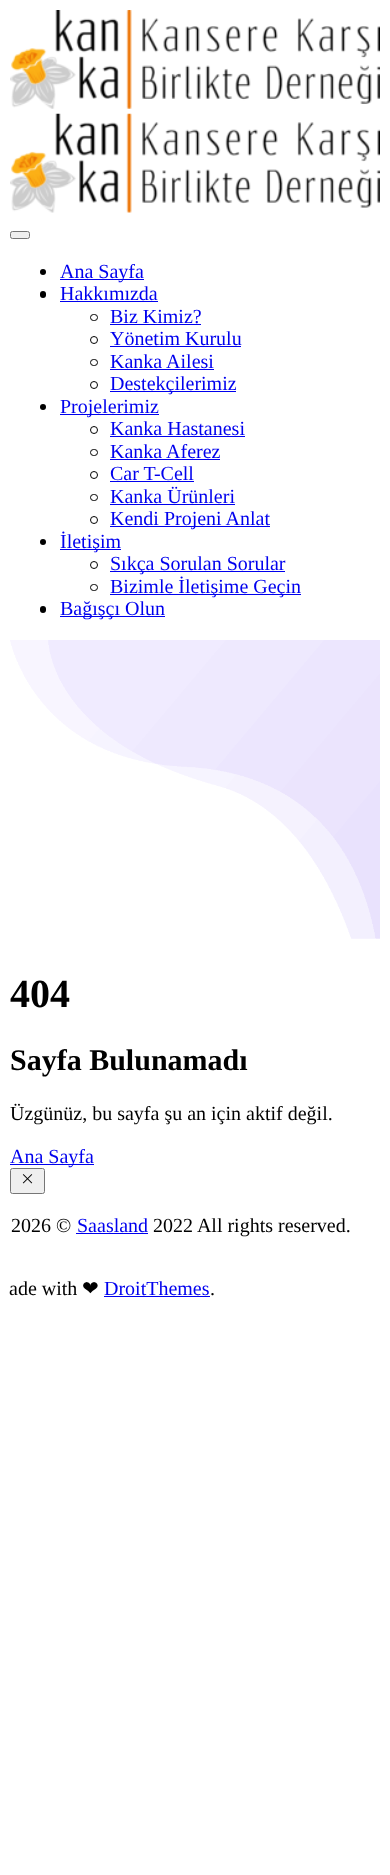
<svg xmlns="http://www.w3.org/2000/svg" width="390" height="1875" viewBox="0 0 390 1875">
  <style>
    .t1 { font: 20px Liberation Serif; fill: #00e; }
    .t2 { font: bold 40px Liberation Serif; fill: #000; }
    .t3 { font: bold 30px Liberation Serif; fill: #000; }
    .t4 { font: 20px Liberation Serif; fill: #000; }
    .t5 { font: 20px DejaVu Sans; fill: #000; }
  </style>
  <rect width="100%" height="100%" fill="#fff"/>
  <image x="10" y="10" width="370" height="99" href="images/1.png"/>
  <image x="10" y="113" width="370" height="100" href="images/2.png"/>
  <rect x="10.5" y="231.5" width="19" height="7" rx="2" fill="#efefef" stroke="#767676"/>
  <circle cx="43" cy="272" r="3" fill="#000"/>
  <rect x="60" y="279" width="84" height="1" fill="#00e"/>
  <text x="60" y="278" class="t1">Ana Sayfa</text>
  <rect x="40" y="291" width="6" height="7" rx="3" fill="#000"/>
  <text x="60" y="300" class="t1">Hakkımızda</text>
  <rect x="60" y="301" width="98" height="1" fill="#00e"/>
  <rect x="90.5" y="314.5" width="7" height="6" rx="3" fill="none" stroke="#000"/>
  <text x="110" y="323" class="t1">Biz Kimiz?</text>
  <rect x="110" y="324" width="91" height="1" fill="#00e"/>
  <circle cx="94" cy="340" r="3.5" fill="none" stroke="#000"/>
  <text x="110" y="345" class="t1">Yönetim Kurulu</text>
  <rect x="110" y="346" width="131" height="1" fill="#00e"/>
  <rect x="90.5" y="359.5" width="7" height="6" rx="3" fill="none" stroke="#000"/>
  <text x="110" y="368" class="t1">Kanka Ailesi</text>
  <rect x="110" y="369" width="104" height="1" fill="#00e"/>
  <circle cx="94" cy="385" r="3.5" fill="none" stroke="#000"/>
  <rect x="110" y="391" width="126" height="1" fill="#00e"/>
  <text x="110" y="390" class="t1">Destekçilerimiz</text>
  <circle cx="43" cy="407" r="3" fill="#000"/>
  <rect x="60" y="414" width="99" height="1" fill="#00e"/>
  <text x="60" y="413" class="t1">Projelerimiz</text>
  <circle cx="94" cy="430" r="3.5" fill="none" stroke="#000"/>
  <text x="110" y="435" class="t1">Kanka Hastanesi</text>
  <rect x="110" y="436" width="135" height="1" fill="#00e"/>
  <rect x="90.5" y="449.5" width="7" height="6" rx="3" fill="none" stroke="#000"/>
  <text x="110" y="458" class="t1">Kanka Aferez</text>
  <rect x="110" y="459" width="110" height="1" fill="#00e"/>
  <circle cx="94" cy="475" r="3.5" fill="none" stroke="#000"/>
  <text x="110" y="480" class="t1">Car T-Cell</text>
  <rect x="110" y="481" width="84" height="1" fill="#00e"/>
  <rect x="90.5" y="494.5" width="7" height="6" rx="3" fill="none" stroke="#000"/>
  <text x="110" y="503" class="t1">Kanka Ürünleri</text>
  <rect x="110" y="504" width="125" height="1" fill="#00e"/>
  <circle cx="94" cy="520" r="3.5" fill="none" stroke="#000"/>
  <rect x="110" y="526" width="160" height="1" fill="#00e"/>
  <text x="110" y="525" class="t1">Kendi Projeni Anlat</text>
  <circle cx="43" cy="542" r="3" fill="#000"/>
  <rect x="60" y="549" width="61" height="1" fill="#00e"/>
  <text x="60" y="548" class="t1">İletişim</text>
  <circle cx="94" cy="565" r="3.5" fill="none" stroke="#000"/>
  <rect x="110" y="571" width="175" height="1" fill="#00e"/>
  <text x="110" y="570" class="t1">Sıkça Sorulan Sorular</text>
  <rect x="90.5" y="584.5" width="7" height="6" rx="3" fill="none" stroke="#000"/>
  <rect x="110" y="594" width="191" height="1" fill="#00e"/>
  <text x="110" y="593" class="t1">Bizimle İletişime Geçin</text>
  <rect x="40" y="606" width="6" height="7" rx="3" fill="#000"/>
  <rect x="60" y="616" width="105" height="1" fill="#00e"/>
  <text x="60" y="615" class="t1">Bağışçı Olun</text>
  <image x="10" y="640" width="370" height="299" href="images/3.png"/>
  <text x="10" y="1007" class="t2">404</text>
  <text x="10" y="1070" class="t3">Sayfa Bulunamadı</text>
  <text x="10" y="1120" class="t4">Üzgünüz, bu sayfa şu an için aktif değil.</text>
  <rect x="10" y="1164" width="84" height="1" fill="#00e"/>
  <text x="10" y="1163" class="t1">Ana Sayfa</text>
  <rect x="10.5" y="1168.5" width="34" height="25" rx="2" fill="#efefef" stroke="#767676"/>
  <image x="22" y="1174" width="11" height="10" href="images/4.png"/>
  <text x="11" y="1232" class="t4">2026 ©</text>
  <text x="77" y="1232" class="t1">Saasland</text>
  <rect x="76" y="1233" width="72" height="1" fill="#00e"/>
  <text x="153" y="1232" class="t4">2022 All rights reserved.</text>
  <text x="9" y="1295" class="t4">ade with</text>
  <text x="82" y="1295" class="t5">❤</text>
  <text x="104" y="1295" class="t1">DroitThemes</text>
  <rect x="104" y="1296" width="106" height="1" fill="#00e"/>
  <text x="210" y="1295" class="t4">.</text>
</svg>
